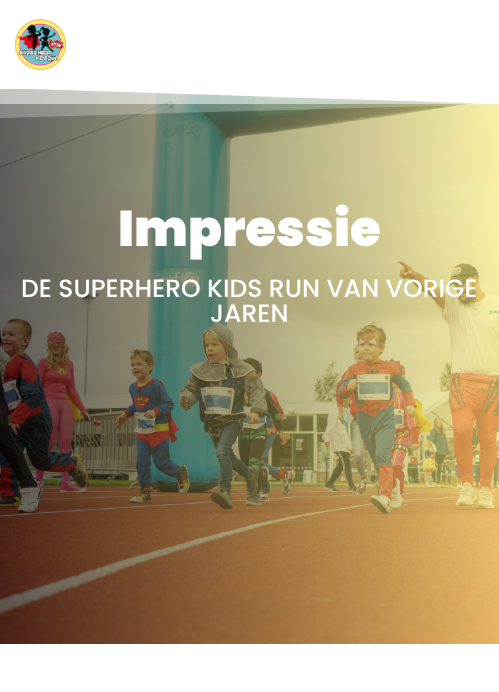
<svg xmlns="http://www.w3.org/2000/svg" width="499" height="692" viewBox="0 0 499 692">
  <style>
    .t1 { font: 900 50px Poppins; fill: #fff; }
    .t2 { font: 500 25px Poppins; fill: #fff; }
  </style>
  <rect width="100%" height="100%" fill="#fff"/>
  <image x="15" y="19" width="51" height="51" href="images/1.png"/>
  <image x="0" y="89" width="499" height="555" href="images/2.png"/>
  <path d="M0 88H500V104Z" fill="#fff"/>
  <rect x="0" y="89" width="499" height="15" fill="#ffffff80"/>
  <path d="M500 88H0V118L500 104Z" fill="#ffffff40"/>
  <text x="118" y="246" class="t1">Impressie</text>
  <text x="21" y="297" class="t2">DE SUPERHERO KIDS RUN VAN VORIGE</text>
  <text x="210" y="322" class="t2">JAREN</text>
</svg>
